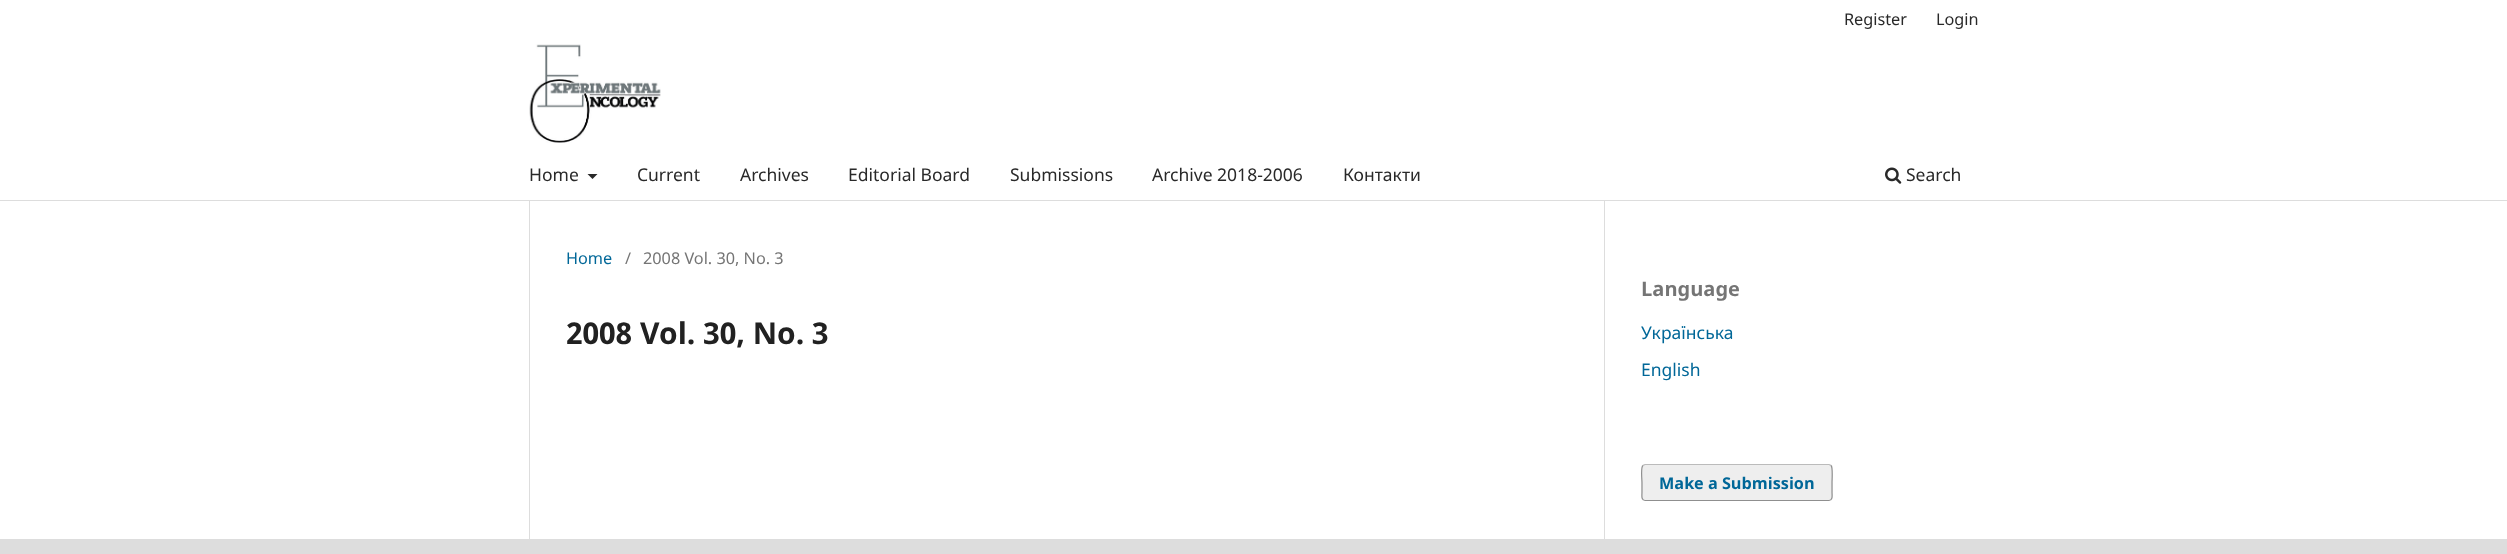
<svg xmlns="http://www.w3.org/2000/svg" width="2507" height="554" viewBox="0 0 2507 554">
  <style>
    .t1 { font: 16.25px Noto Sans; fill: #292929; }
    .t2 { font: 17.5px Noto Sans; fill: #292929; }
    .t3 { font: 16.25px Noto Sans; fill: #006798; }
    .t4 { font: 16.25px Noto Sans; fill: #757575; }
    .t5 { font: bold 30px Noto Sans; fill: #212121; }
    .t6 { font: bold 20px Noto Sans; fill: #757575; }
    .t7 { font: 17.5px Noto Sans; fill: #006798; }
    .t8 { font: bold 16.25px Noto Sans; fill: #006798; }
  </style>
  <rect width="100%" height="100%" fill="#fff"/>
  <rect x="0" y="200" width="2507" height="1" fill="#ddd"/>
  <text x="1844" y="25" class="t1">Register</text>
  <text x="1936" y="25" class="t1">Login</text>
  <text x="529" y="181" class="t2">Home</text>
  <path d="M587.5 174H597.5L592.5 179Z" fill="#292929"/>
  <text x="637" y="181" class="t2">Current</text>
  <text x="740" y="181" class="t2">Archives</text>
  <text x="848" y="181" class="t2">Editorial Board</text>
  <text x="1010" y="181" class="t2">Submissions</text>
  <text x="1152" y="181" class="t2">Archive 2018-2006</text>
  <text x="1343" y="181" class="t2">Контакти</text>
  <image x="1885" y="167" width="17" height="17" href="images/1.png"/>
  <text x="1906" y="181" class="t2">Search</text>
  <image x="529" y="44" width="132" height="99" href="images/2.png"/>
  <rect x="529" y="201" width="1" height="338" fill="#ddd"/>
  <text x="566" y="264" class="t3">Home</text>
  <text x="625" y="264" class="t4">/</text>
  <text x="643" y="264" class="t4">2008 Vol. 30, No. 3</text>
  <rect x="1604" y="201" width="1" height="338" fill="#ddd"/>
  <text x="566" y="344" class="t5">2008 Vol. 30, No. 3</text>
  <text x="1641" y="296" class="t6">Language</text>
  <text x="1641" y="339" class="t7">Українська</text>
  <text x="1641" y="376" class="t7">English</text>
  <rect x="1641" y="464" width="192" height="37" rx="4" fill="#eee"/>
  <path d="M1643 465.5L1645 464.5H1829L1831 465.5" fill="none" stroke="#bbb" stroke-width="1.2"/>
  <path d="M1831 465.5C1833 467.5 1832 479.5 1832 482.5V492.5C1832 495 1833 500.5 1829 500.5H1645C1641 500.5 1642 495 1642 492.5V482.5C1642 479.5 1640.5 467.5 1643 465.5" fill="none" stroke="#00000066" stroke-width="1.2"/>
  <text x="1659" y="489" class="t8">Make a Submission</text>
  <rect x="0" y="539" width="2507" height="15" fill="#ddd"/>
</svg>
